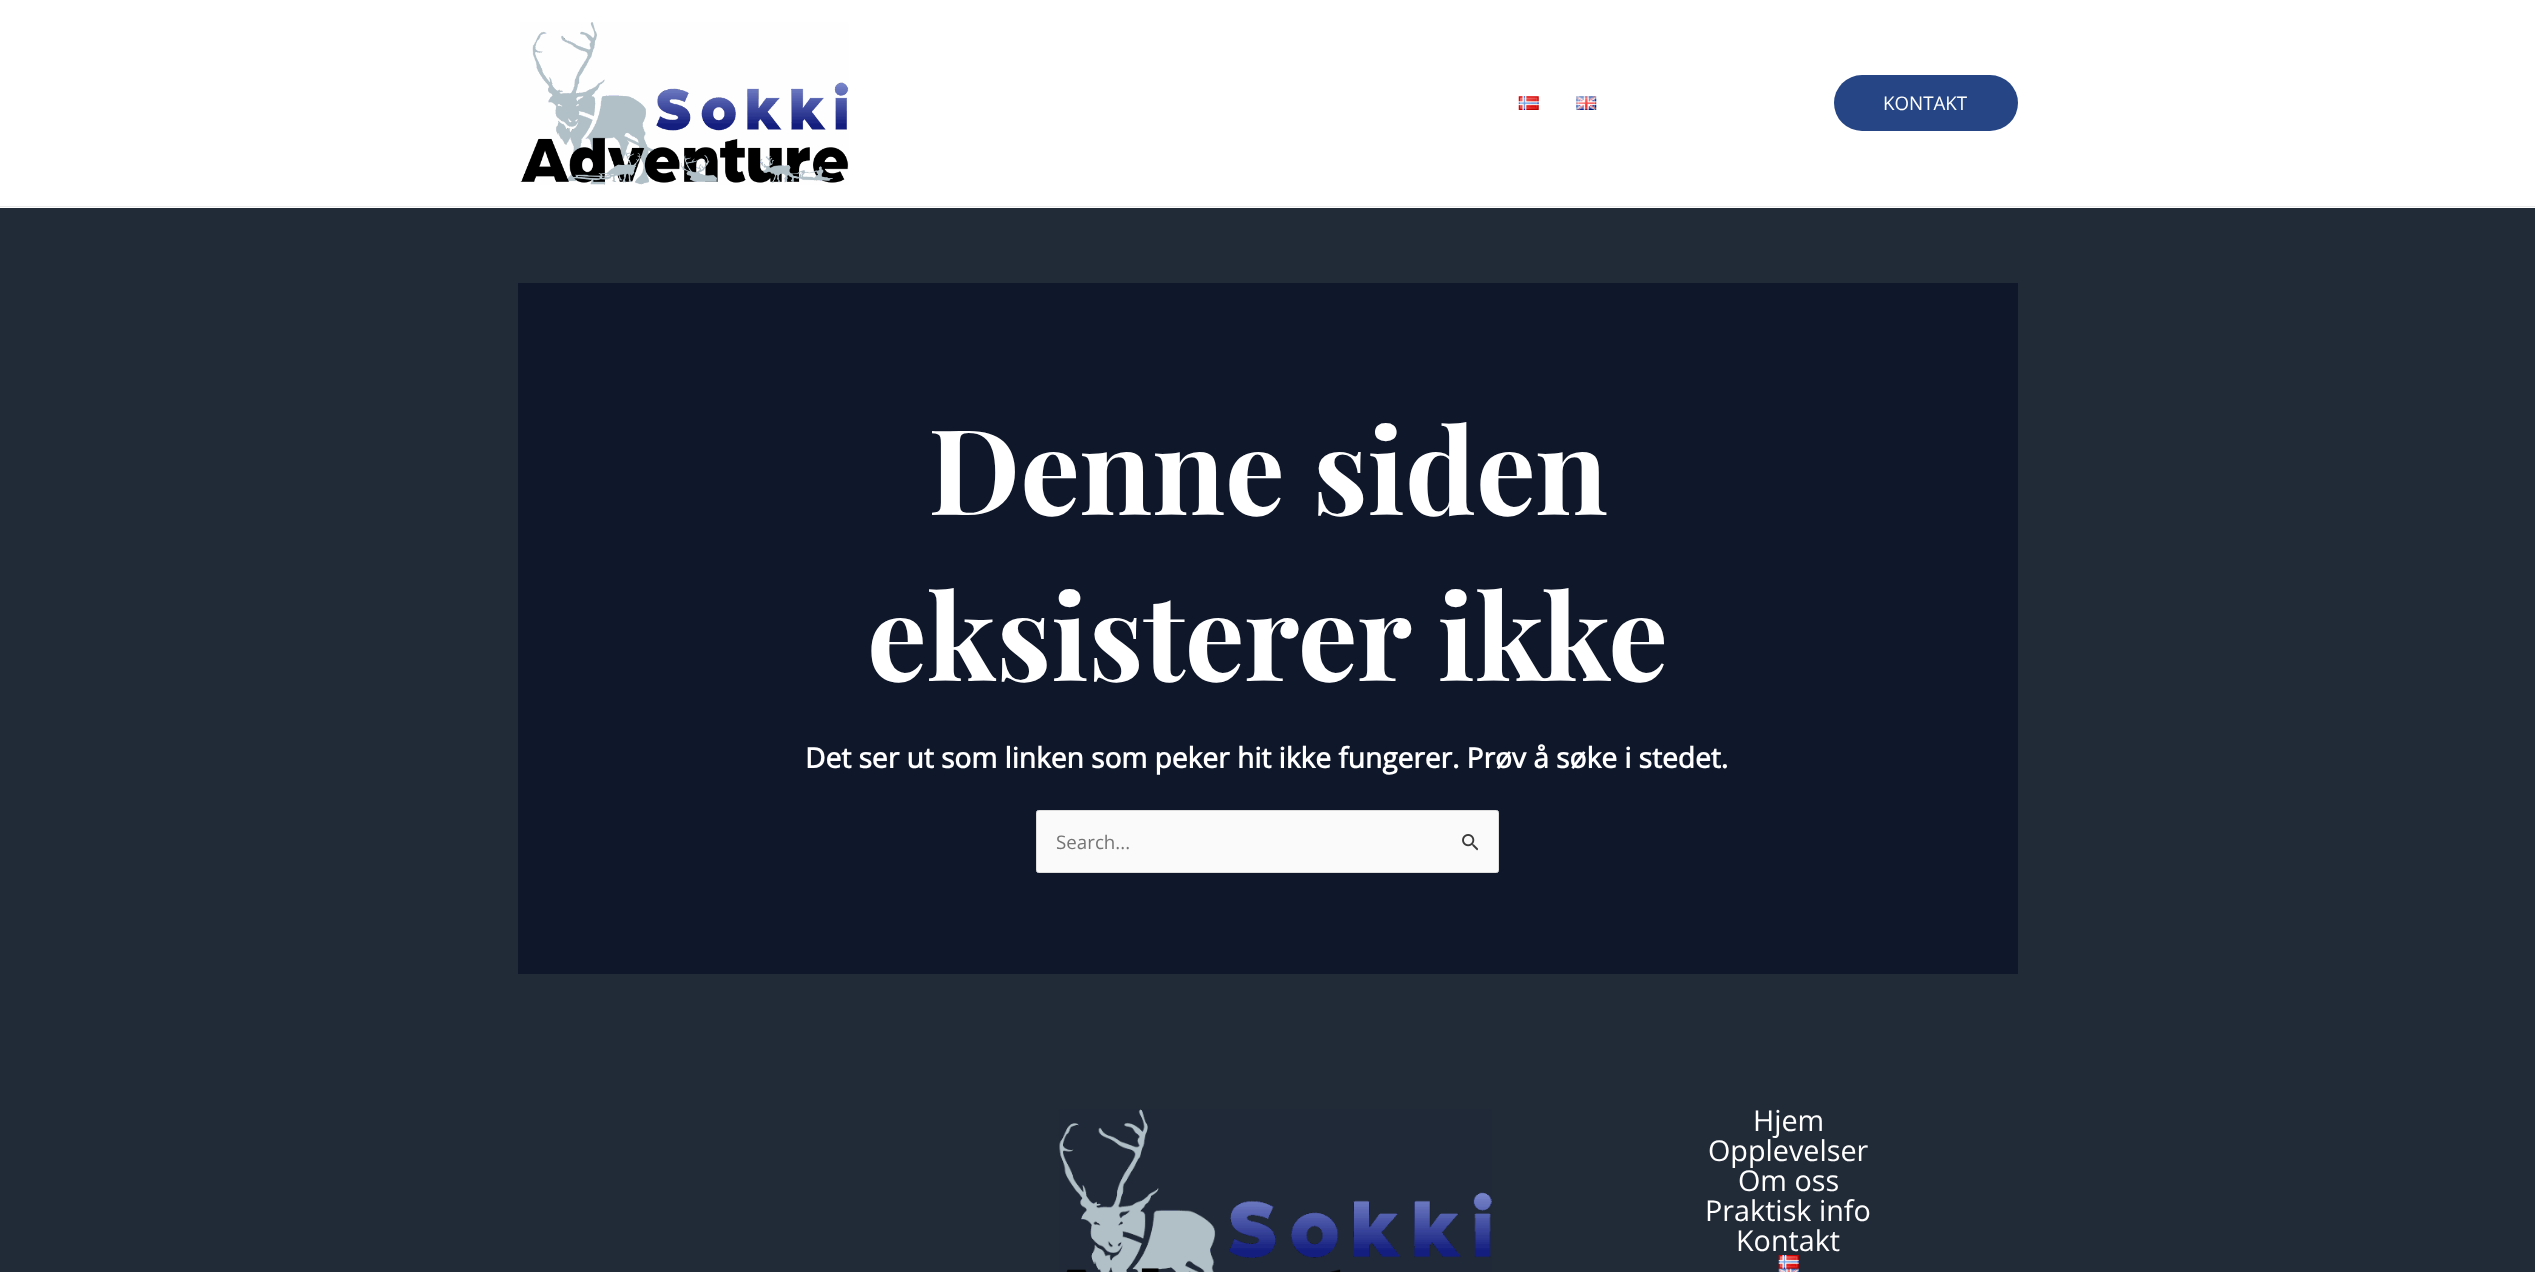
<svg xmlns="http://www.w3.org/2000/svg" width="2535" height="1272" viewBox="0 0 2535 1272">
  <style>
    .t1 { font: 18.75px Open Sans; fill: #fff; }
    .t2 { font: bold 118.75px Playfair Display; fill: #fff; }
    .t3 { font: bold 28.1px Open Sans; fill: #fff; }
    .t4 { font: 18.75px Open Sans; fill: #757575; }
    .t5 { font: 28.75px Open Sans; fill: #fff; }
  </style>
  <rect width="100%" height="100%" fill="#212a37"/>
  <rect x="0" y="0" width="2535" height="208" fill="#fff"/>
  <rect x="0" y="206" width="2535" height="1" fill="#eaeaea"/>
  <image x="520" y="22" width="329" height="163" href="images/1.png"/>
  <image x="1518" y="96" width="21" height="14" href="images/2.png"/>
  <image x="1576" y="96" width="21" height="14" href="images/3.png"/>
  <rect x="1834" y="75" width="184" height="56" rx="28" fill="#254585"/>
  <text x="1883" y="110" class="t1">KONTAKT</text>
  <rect x="518" y="283" width="1500" height="691" fill="#0f172a"/>
  <text x="928" y="515" class="t2">Denne siden</text>
  <text x="867" y="681" class="t2">eksisterer ikke</text>
  <text x="805" y="768" class="t3">Det ser ut som linken som peker hit ikke fungerer. Prøv å søke i stedet.</text>
  <rect x="1036.5" y="810.5" width="462" height="62" rx="2" fill="#fafafa" stroke="#ddd"/>
  <text x="1056" y="849" class="t4">Search...</text>
  <image x="1462" y="834" width="16" height="17" href="images/4.png"/>
  <image x="1059" y="1109" width="433" height="163" href="images/5.png"/>
  <text x="1753" y="1131" class="t5">Hjem</text>
  <text x="1708" y="1161" class="t5">Opplevelser</text>
  <text x="1738" y="1191" class="t5">Om oss</text>
  <text x="1705" y="1221" class="t5">Praktisk info</text>
  <text x="1736" y="1251" class="t5">Kontakt</text>
  <image x="1778" y="1255" width="21" height="14" href="images/6.png"/>
  <image x="1778" y="1268" width="21" height="4" href="images/7.png"/>
</svg>
